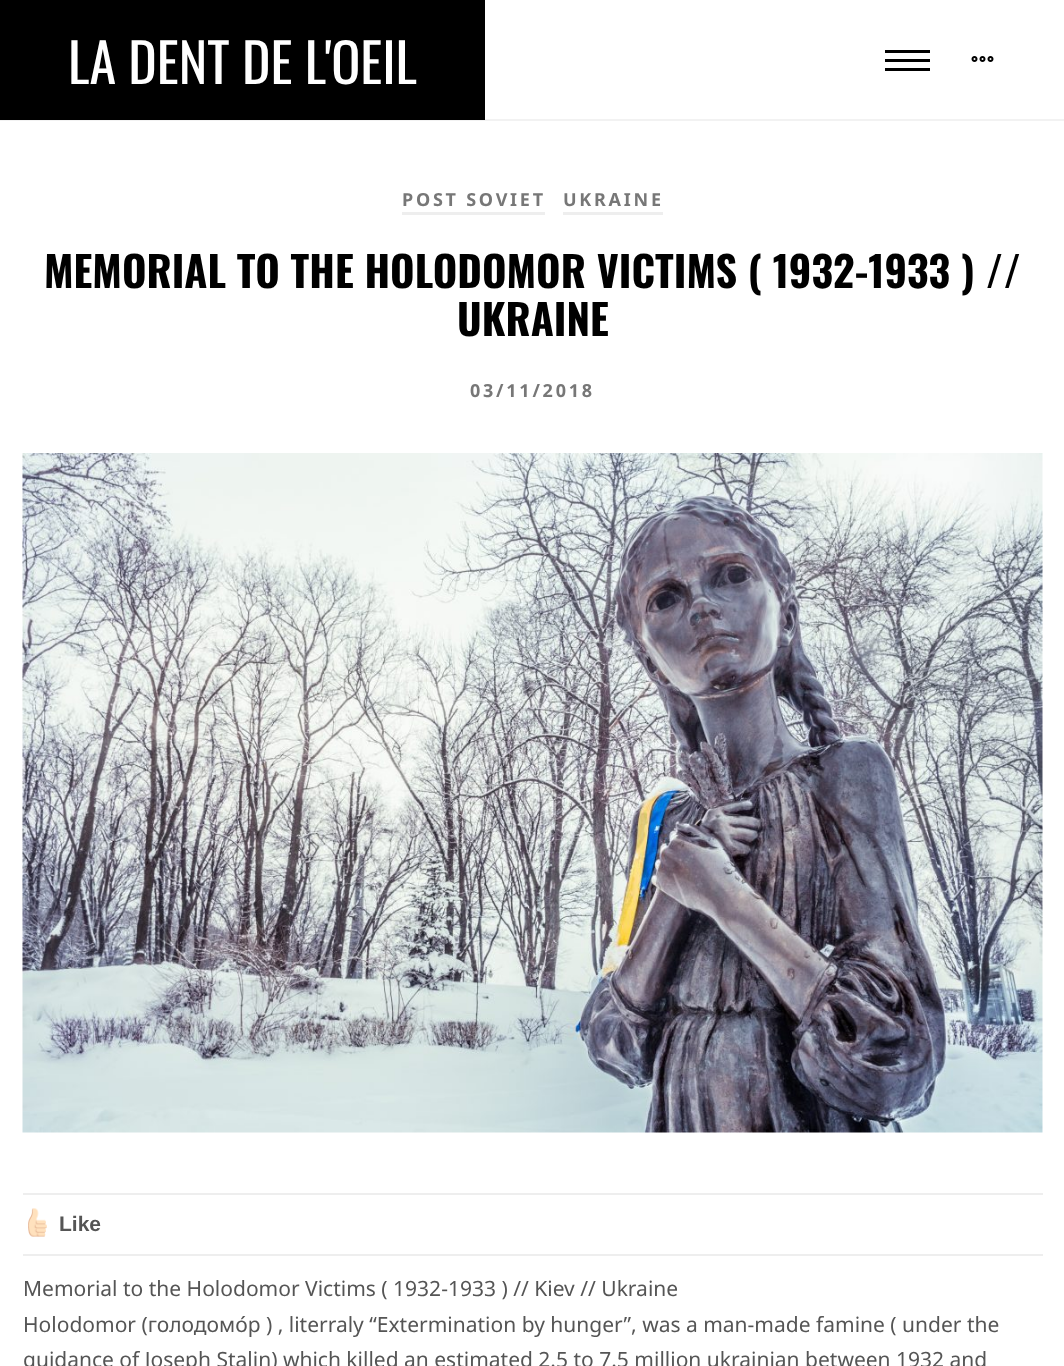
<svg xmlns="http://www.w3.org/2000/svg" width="1064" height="1366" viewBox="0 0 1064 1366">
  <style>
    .t1 { font: 54px Oswald; fill: #fff; }
    .t2 { font: bold 18px Noto Sans; letter-spacing: 2.75px; fill: #777; }
    .t3 { font: bold 42px Oswald; fill: #000; }
    .t4 { font: bold 21px Liberation Sans; fill: #555; }
    .t5 { font: 21px Noto Sans; fill: #555; }
  </style>
  <rect width="100%" height="100%" fill="#fff"/>
  <rect x="0" y="119" width="1064" height="2" fill="#f2f2f2"/>
  <rect x="0" y="0" width="485" height="120" fill="#000"/>
  <text x="68" y="84" class="t1">LA DENT DE L'OEIL</text>
  <rect x="885" y="50" width="45" height="3" fill="#000"/>
  <rect x="885" y="59" width="45" height="3" fill="#000"/>
  <rect x="885" y="68" width="45" height="3" fill="#000"/>
  <image x="971" y="56" width="23" height="6" href="images/1.png"/>
  <text x="402" y="206" class="t2">POST SOVIET</text>
  <rect x="402" y="212" width="143" height="3" fill="#eee"/>
  <text x="563" y="206" class="t2">UKRAINE</text>
  <rect x="563" y="212" width="100" height="3" fill="#eee"/>
  <text x="44" y="288" class="t3">MEMORIAL TO THE HOLODOMOR VICTIMS ( 1932-1933 ) //</text>
  <text x="457" y="336" class="t3">UKRAINE</text>
  <text x="470" y="397" class="t2">03/11/2018</text>
  <image x="22" y="453" width="1021" height="680" href="images/2.png"/>
  <rect x="23" y="1193" width="1020" height="2" fill="#eee"/>
  <rect x="23" y="1254" width="1020" height="2" fill="#eee"/>
  <image x="28" y="1208" width="19" height="29" href="images/3.png"/>
  <text x="59" y="1231" class="t4">Like</text>
  <text x="23" y="1296" class="t5">Memorial to the Holodomor Victims ( 1932-1933 ) // Kiev // Ukraine</text>
  <text x="23" y="1332" class="t5">Holodomor (голодомо́р ) , literraly “Extermination by hunger”, was a man-made famine ( under the</text>
  <text x="23" y="1367" class="t5">guidance of Joseph Stalin) which killed an estimated 2.5 to 7.5 million ukrainian between 1932 and</text>
</svg>
